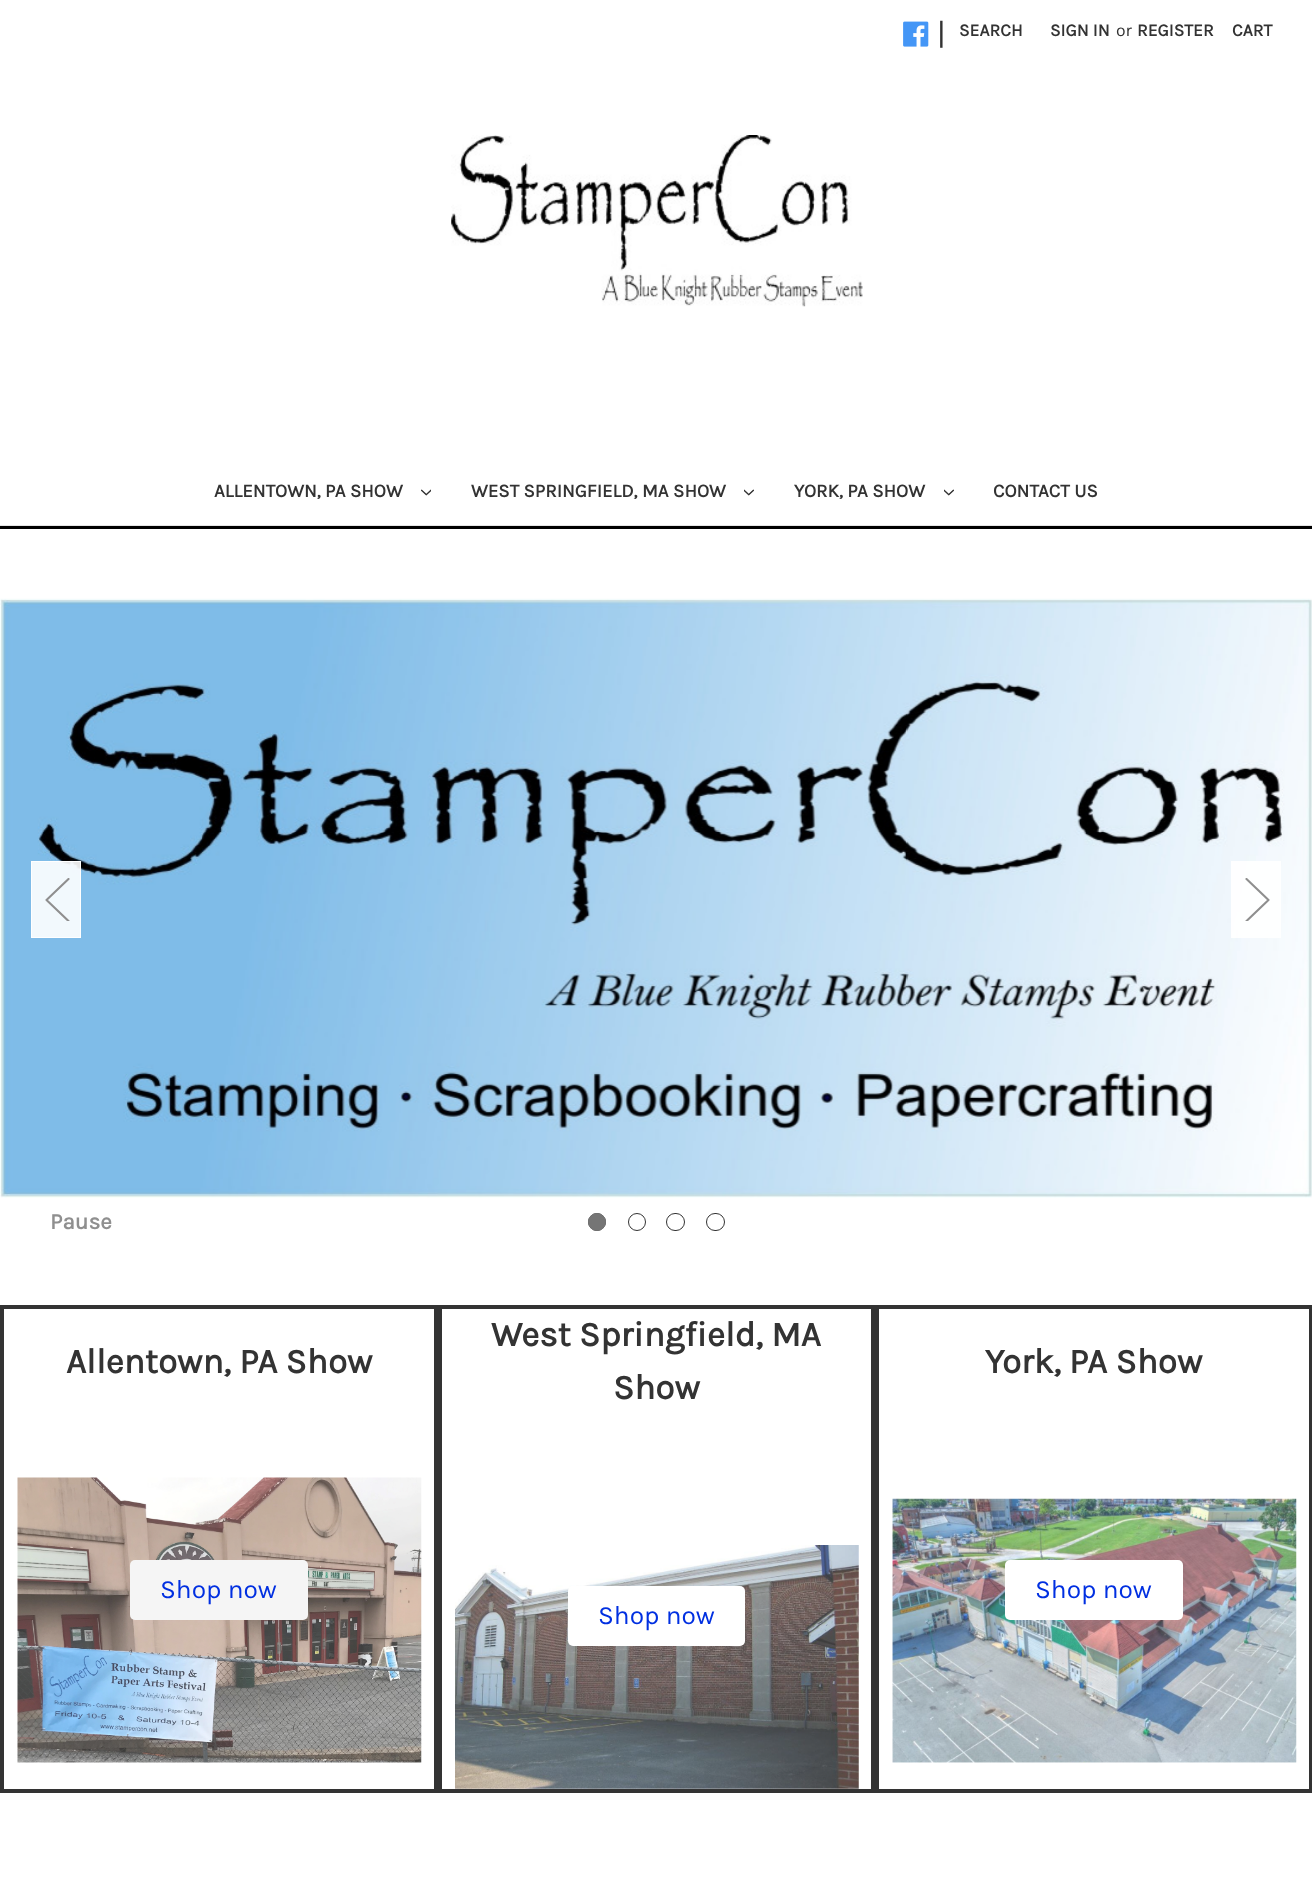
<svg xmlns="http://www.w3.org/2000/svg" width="1312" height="1878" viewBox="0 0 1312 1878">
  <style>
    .t1 { font: 31px Karla; fill: #333; }
    .t2 { font: bold 17.5px Karla; fill: #333; }
    .t3 { font: 17.5px Karla; fill: #333; }
    .t4 { font: bold 18.75px Karla; fill: #333; }
    .t5 { font: bold 22.5px Karla; fill: #8f8f8f; }
    .t6 { font: bold 35px Karla; fill: #333; }
    .t7 { font: 26.25px Karla; fill: #002fe1; }
  </style>
  <defs>
    <clipPath id="clip1"><rect x="45" y="878" width="25" height="43"/></clipPath>
    <clipPath id="clip2"><rect x="1245" y="878" width="25" height="43"/></clipPath>
  </defs>
  <rect width="100%" height="100%" fill="#fff"/>
  <rect x="0" y="525" width="1312" height="1" fill="#e5e5e5"/>
  <image x="903" y="21" width="26" height="26" href="images/1.png"/>
  <text x="937" y="44" class="t1">|</text>
  <text x="959" y="36" class="t2">SEARCH</text>
  <text x="1050" y="36" class="t2">SIGN IN</text>
  <text x="1116" y="36" class="t3">or</text>
  <text x="1137" y="36" class="t2">REGISTER</text>
  <text x="1232" y="36" class="t2">CART</text>
  <image x="451" y="135" width="412" height="172" href="images/2.png"/>
  <text x="214" y="497" class="t4">ALLENTOWN, PA SHOW</text>
  <image x="421" y="489" width="10" height="7" href="images/3.png"/>
  <text x="471" y="497" class="t4">WEST SPRINGFIELD, MA SHOW</text>
  <image x="744" y="489" width="10" height="7" href="images/4.png"/>
  <text x="794" y="497" class="t4">YORK, PA SHOW</text>
  <image x="944" y="489" width="10" height="7" href="images/4.png"/>
  <text x="993" y="497" class="t4">CONTACT US</text>
  <rect x="0" y="526" width="1312" height="3" fill="#000"/>
  <image x="0" y="598" width="1312" height="600" href="images/5.png"/>
  <rect x="31.5" y="861.5" width="49" height="76" fill="#ffffffe6" stroke="#fff"/>
  <g clip-path="url(#clip1)">
    <path d="M68.5 879L46.5 900L68.5 921" fill="none" stroke="#8f8f8f" stroke-width="2.1" stroke-linecap="round" stroke-linejoin="round"/>
  </g>
  <rect x="1231" y="861" width="50" height="77" fill="#ffffffe6"/>
  <g clip-path="url(#clip2)">
    <path d="M1246.5 879L1268.5 900L1246.5 921" fill="none" stroke="#8f8f8f" stroke-width="2.1" stroke-linecap="round" stroke-linejoin="round"/>
  </g>
  <text x="50" y="1229" class="t5">Pause</text>
  <circle cx="597" cy="1222" r="8.5" fill="none" stroke="#333"/>
  <circle cx="597" cy="1222" r="9" fill="#757575"/>
  <circle cx="637" cy="1222" r="8.5" fill="none" stroke="#333"/>
  <rect x="666.5" y="1213.5" width="18" height="17" rx="8.5" fill="none" stroke="#333"/>
  <rect x="706.5" y="1213.5" width="18" height="17" rx="8.5" fill="none" stroke="#333"/>
  <rect x="2" y="1307" width="434" height="484" fill="none" stroke="#333" stroke-width="4"/>
  <text x="66" y="1373" class="t6">Allentown, PA Show</text>
  <image x="17" y="1477" width="405" height="286" href="images/6.png"/>
  <rect x="130" y="1560" width="178" height="60" rx="5" fill="#f5f5f5"/>
  <text x="160" y="1598" class="t7">Shop now</text>
  <rect x="440" y="1307" width="433" height="484" fill="none" stroke="#333" stroke-width="4"/>
  <text x="491" y="1346" class="t6">West Springfield, MA</text>
  <text x="613" y="1399" class="t6">Show</text>
  <image x="455" y="1545" width="404" height="244" href="images/7.png"/>
  <rect x="568" y="1586" width="177" height="60" rx="5" fill="#fff"/>
  <text x="598" y="1624" class="t7">Shop now</text>
  <rect x="877" y="1307" width="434" height="484" fill="none" stroke="#333" stroke-width="4"/>
  <text x="985" y="1373" class="t6">York, PA Show</text>
  <image x="892" y="1498" width="405" height="265" href="images/8.png"/>
  <rect x="1005" y="1560" width="178" height="60" rx="5" fill="#fff"/>
  <text x="1035" y="1598" class="t7">Shop now</text>
</svg>
